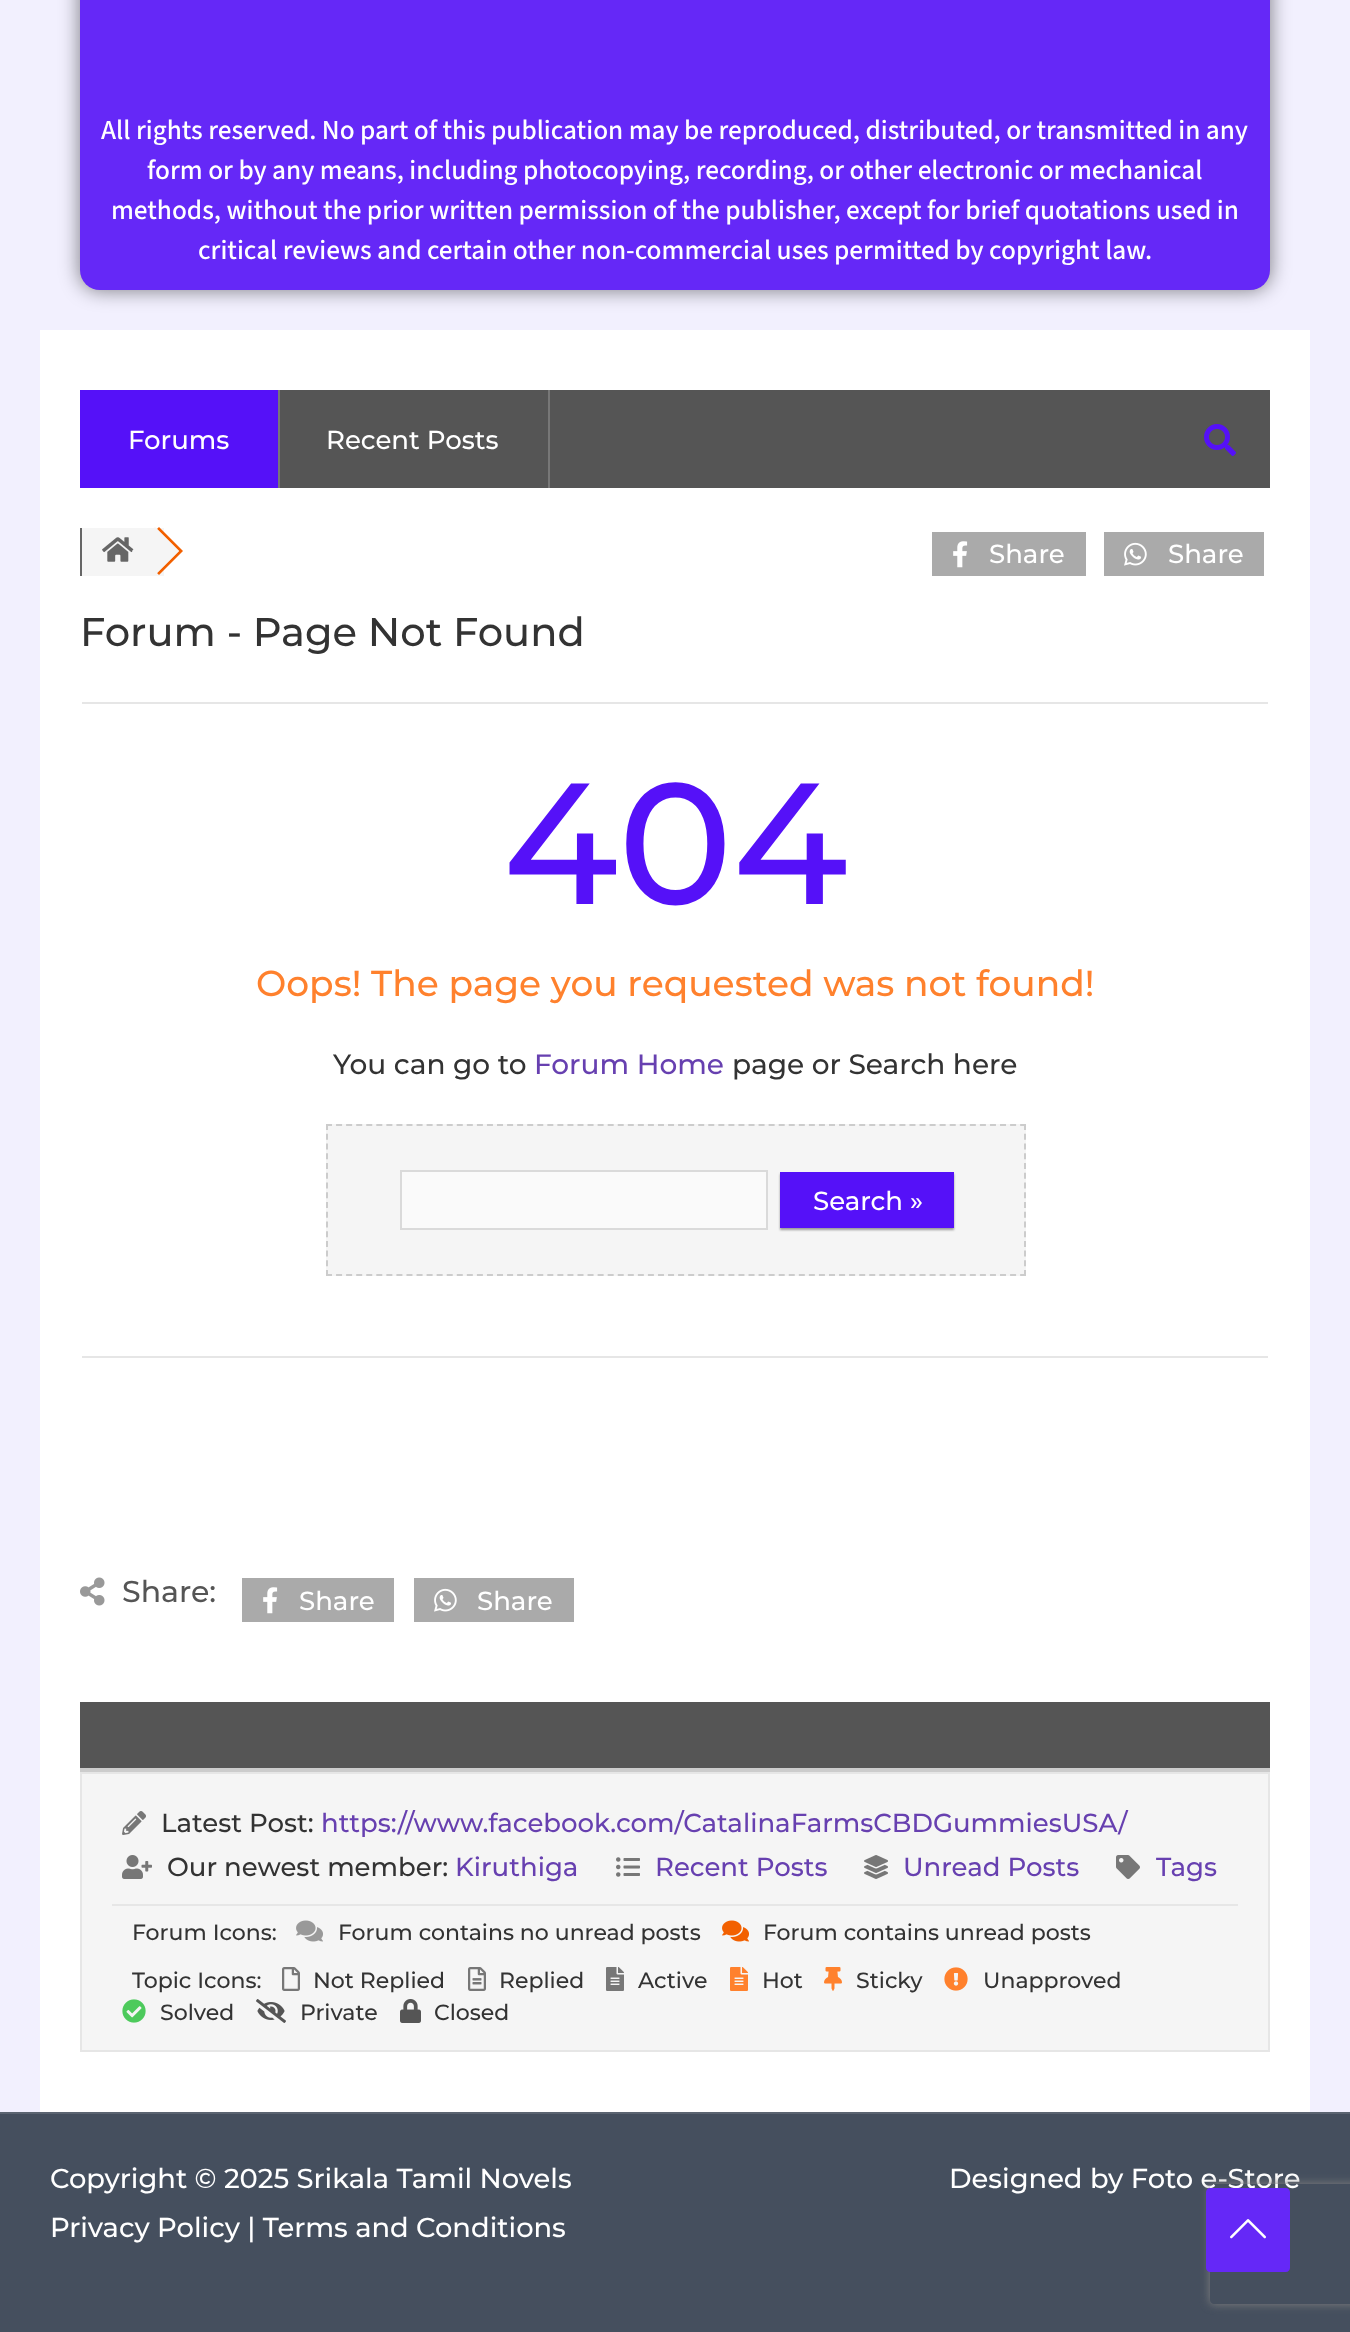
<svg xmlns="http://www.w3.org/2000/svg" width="1350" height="2332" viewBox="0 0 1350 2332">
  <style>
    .t1 { font: 500 27.35px 'Source Sans 3'; fill: #fff; }
    .t2 { font: 500 26px Montserrat; fill: #fff; }
    .t3 { font: 500 40px Montserrat; fill: #333; }
    .t4 { font: 500 172px Montserrat; fill: #5511f8; }
    .t5 { font: 500 36px Montserrat; fill: #ff812d; }
    .t6 { font: 500 28px Montserrat; fill: #333; }
    .t7 { font: 500 28px Montserrat; fill: #6740b0; }
    .t8 { font: 500 30px Montserrat; fill: #555; }
    .t9 { font: 500 26px Montserrat; fill: #333; }
    .t10 { font: 500 26px Montserrat; fill: #6740b0; }
    .t11 { font: 500 22px Montserrat; fill: #333; }
    .t12 { font: 500 27.35px Montserrat; fill: #fff; }
  </style>
  <defs>
    <clipPath id="clip1"><path d="M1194 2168H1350V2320H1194ZM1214 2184H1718C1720 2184 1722 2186 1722 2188V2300C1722 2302 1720 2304 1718 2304H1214C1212 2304 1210 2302 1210 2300V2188C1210 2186 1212 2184 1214 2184Z" clip-rule="evenodd"/></clipPath>
  </defs>
  <rect width="100%" height="100%" fill="#f2f0fe"/>
  <rect x="80" y="-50" width="1190" height="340" rx="20" fill="#00000080" filter="blur(10px)"/>
  <rect x="80" y="-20" width="1190" height="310" rx="20" fill="#6528f7"/>
  <text x="101" y="139" class="t1">All rights reserved. No part of this publication may be reproduced, distributed, or transmitted in any</text>
  <text x="147" y="179" class="t1">form or by any means, including photocopying, recording, or other electronic or mechanical</text>
  <text x="111" y="219" class="t1">methods, without the prior written permission of the publisher, except for brief quotations used in</text>
  <text x="198" y="259" class="t1">critical reviews and certain other non-commercial uses permitted by copyright law.</text>
  <rect x="40" y="330" width="1270" height="1782" fill="#fff"/>
  <rect x="280" y="390" width="990" height="98" fill="#555"/>
  <rect x="80" y="390" width="198" height="98" fill="#5511f8"/>
  <rect x="278" y="390" width="2" height="98" fill="#777"/>
  <text x="128" y="449" class="t2">Forums</text>
  <rect x="548" y="390" width="2" height="98" fill="#777"/>
  <text x="326" y="449" class="t2">Recent Posts</text>
  <image x="1204" y="424" width="32" height="32" href="images/1.png"/>
  <rect x="82" y="528" width="82" height="48" fill="#f5f5f5"/>
  <rect x="80" y="528" width="2" height="48" fill="#666"/>
  <image x="102" y="537" width="32" height="25" href="images/2.png"/>
  <path d="M159 527L157 529L179 551L157 573L159 575L183 551Z" fill="#f26000"/>
  <path d="M155 527L179 551L155 575L132 551Z" fill="#f5f5f5"/>
  <rect x="932" y="532" width="154" height="44" fill="#aaa"/>
  <image x="953" y="541" width="15" height="27" href="images/3.png"/>
  <text x="989" y="563" class="t2">Share</text>
  <rect x="1104" y="532" width="160" height="44" fill="#aaa"/>
  <image x="1124" y="542" width="23" height="24" href="images/4.png"/>
  <text x="1168" y="563" class="t2">Share</text>
  <text x="80" y="646" class="t3">Forum - Page Not Found</text>
  <rect x="82" y="702" width="1186" height="2" fill="#e6e6e6"/>
  <rect x="82" y="1356" width="1186" height="2" fill="#e6e6e6"/>
  <text x="503" y="904" class="t4">404</text>
  <text x="256" y="996" class="t5">Oops! The page you requested was not found!</text>
  <text x="333" y="1074" class="t6">You can go to</text>
  <text x="534" y="1074" class="t7">Forum Home</text>
  <text x="732" y="1074" class="t6">page or Search here</text>
  <rect x="326" y="1124" width="700" height="152" fill="#f5f5f5"/>
  <path d="M326 1125H1026" fill="none" stroke="#ccc" stroke-width="2" stroke-dasharray="6 4.06"/>
  <path d="M1025 1124V1276" fill="none" stroke="#ccc" stroke-width="2" stroke-dasharray="6 3.74"/>
  <path d="M326 1275H1026" fill="none" stroke="#ccc" stroke-width="2" stroke-dasharray="6 4.06"/>
  <path d="M327 1124V1276" fill="none" stroke="#ccc" stroke-width="2" stroke-dasharray="6 3.74"/>
  <rect x="401" y="1171" width="366" height="58" fill="#fafafa" stroke="#dadada" stroke-width="2"/>
  <rect x="780" y="1174" width="174" height="56" fill="#999" filter="blur(1px)"/>
  <rect x="780" y="1172" width="174" height="56" fill="#5511f8"/>
  <text x="813" y="1210" class="t2">Search »</text>
  <image x="80" y="1577" width="25" height="29" href="images/5.png"/>
  <text x="122" y="1602" class="t8">Share:</text>
  <rect x="242" y="1578" width="152" height="44" fill="#aaa"/>
  <image x="263" y="1587" width="15" height="27" href="images/3.png"/>
  <text x="299" y="1610" class="t2">Share</text>
  <rect x="414" y="1578" width="160" height="44" fill="#aaa"/>
  <image x="434" y="1588" width="23" height="24" href="images/4.png"/>
  <text x="477" y="1610" class="t2">Share</text>
  <rect x="80" y="1702" width="1190" height="66" fill="#555"/>
  <rect x="80" y="1768" width="1190" height="4" fill="#ccc"/>
  <rect x="81" y="1773" width="1188" height="278" fill="#f5f5f5" stroke="#e6e6e6" stroke-width="2"/>
  <image x="122" y="1811" width="24" height="24" href="images/6.png"/>
  <text x="161" y="1832" class="t9">Latest Post:</text>
  <text x="321" y="1832" class="t10">https://www.facebook.com/CatalinaFarmsCBDGummiesUSA/</text>
  <image x="122" y="1855" width="30" height="24" href="images/7.png"/>
  <text x="167" y="1876" class="t9">Our newest member:</text>
  <text x="455" y="1876" class="t10">Kiruthiga</text>
  <image x="616" y="1857" width="24" height="20" href="images/8.png"/>
  <text x="655" y="1876" class="t10">Recent Posts</text>
  <image x="864" y="1855" width="24" height="24" href="images/9.png"/>
  <text x="903" y="1876" class="t10">Unread Posts</text>
  <image x="1116" y="1855" width="24" height="24" href="images/10.png"/>
  <text x="1156" y="1876" class="t10">Tags</text>
  <rect x="112" y="1904" width="1126" height="2" fill="#e6e6e6"/>
  <text x="132" y="1940" class="t11">Forum Icons:</text>
  <image x="296" y="1920" width="27" height="22" href="images/11.png"/>
  <text x="338" y="1940" class="t11">Forum contains no unread posts</text>
  <image x="722" y="1920" width="27" height="22" href="images/12.png"/>
  <text x="763" y="1940" class="t11">Forum contains unread posts</text>
  <text x="132" y="1988" class="t11">Topic Icons:</text>
  <image x="282" y="1967" width="18" height="24" href="images/13.png"/>
  <text x="313" y="1988" class="t11">Not Replied</text>
  <image x="468" y="1967" width="18" height="24" href="images/14.png"/>
  <text x="499" y="1988" class="t11">Replied</text>
  <image x="606" y="1967" width="18" height="24" href="images/15.png"/>
  <text x="638" y="1988" class="t11">Active</text>
  <image x="730" y="1967" width="18" height="24" href="images/16.png"/>
  <text x="762" y="1988" class="t11">Hot</text>
  <image x="824" y="1967" width="18" height="24" href="images/17.png"/>
  <text x="856" y="1988" class="t11">Sticky</text>
  <image x="944" y="1967" width="24" height="24" href="images/18.png"/>
  <text x="983" y="1988" class="t11">Unapproved</text>
  <image x="122" y="1999" width="24" height="24" href="images/19.png"/>
  <text x="160" y="2020" class="t11">Solved</text>
  <image x="256" y="1999" width="30" height="24" href="images/20.png"/>
  <text x="300" y="2020" class="t11">Private</text>
  <image x="400" y="1999" width="21" height="24" href="images/21.png"/>
  <text x="434" y="2020" class="t11">Closed</text>
  <rect x="0" y="2114" width="1350" height="218" fill="#454f5e"/>
  <rect x="0" y="2112" width="1350" height="2" fill="#5b6471"/>
  <text x="50" y="2188" class="t12">Copyright © 2025 Srikala Tamil Novels</text>
  <text x="50" y="2237" class="t12">Privacy Policy | Terms and Conditions</text>
  <text x="949" y="2188" class="t12">Designed by Foto e-Store</text>
  <g clip-path="url(#clip1)">
    <rect x="1210" y="2184" width="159" height="120" rx="4" fill="#808080" filter="blur(5px)"/>
  </g>
  <path d="M1286 2272H1210C1208 2272 1206 2270 1206 2268V2192C1206 2190 1208 2188 1210 2188H1286C1288 2188 1290 2190 1290 2192V2268C1290 2270 1288 2272 1286 2272Z" fill="#6528f7"/>
  <image x="1230" y="2219" width="36" height="20" href="images/22.png"/>
</svg>
